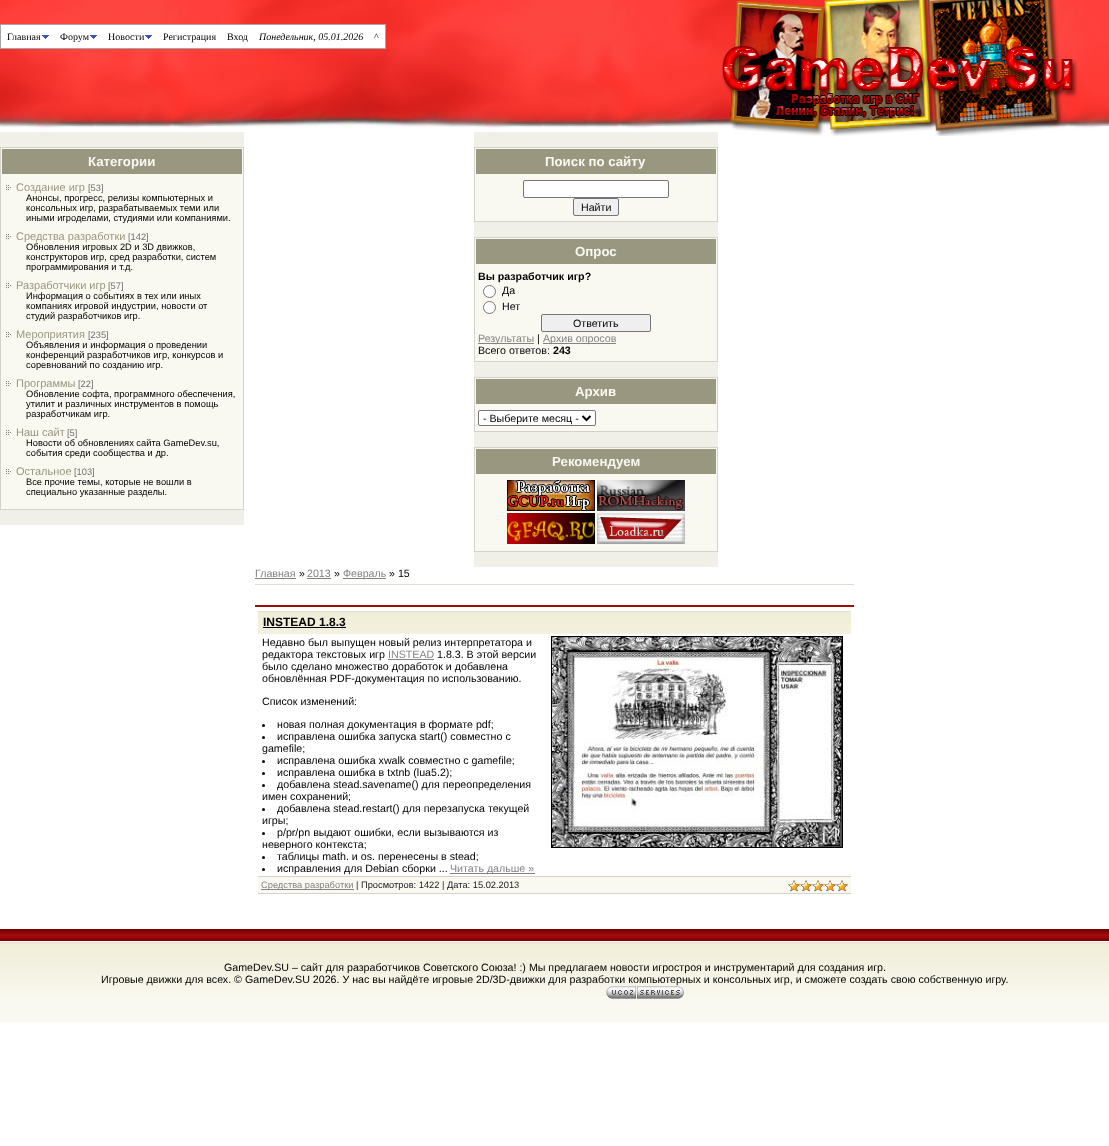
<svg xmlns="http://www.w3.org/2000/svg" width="1109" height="1146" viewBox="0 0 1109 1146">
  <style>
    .t1 { font: 10px Liberation Serif; fill: #000; }
    .t2 { font: italic 10px Liberation Serif; fill: #000; }
    .t3 { font: bold 13.25px Liberation Sans; fill: #faf9f1; }
    .t4 { font: 11px Liberation Sans; fill: #99977f; }
    .t5 { font: 9.3px Liberation Sans; fill: #6e6e6e; }
    .t6 { font: 9.3px Liberation Sans; fill: #000; }
    .t7 { font: 10.67px Liberation Sans; fill: #000; }
    .t8 { font: bold 10.67px Liberation Sans; fill: #000; }
    .t9 { font: 10.67px Liberation Sans; fill: #838383; }
    .t10 { font: bold 12px Liberation Sans; fill: #000; }
    .t11 { font: 9.3px Liberation Sans; fill: #838383; }
    .t12 { font: 9.3px Liberation Sans; fill: #1a1a1a; }
  </style>
  <defs>
    <clipPath id="clip1"><rect x="60" y="31" width="37" height="11"/></clipPath>
  </defs>
  <rect width="100%" height="100%" fill="#fff"/>
  <image x="0" y="0" width="1109" height="136" href="images/1.png"/>
  <rect x="0.5" y="24.5" width="385" height="24" fill="#fff" stroke="#a6a6a6"/>
  <image x="42" y="35" width="7" height="4" href="images/2.png"/>
  <text x="7" y="40" class="t1">Главная</text>
  <image x="90" y="35" width="7" height="4" href="images/2.png"/>
  <g clip-path="url(#clip1)">
    <text x="60" y="40" class="t1">Форум</text>
  </g>
  <image x="145" y="35" width="7" height="4" href="images/2.png"/>
  <text x="108" y="40" class="t1">Новости</text>
  <text x="163" y="40" class="t1">Регистрация</text>
  <text x="227" y="40" class="t1">Вход</text>
  <text x="259" y="40" class="t2">Понедельник, 05.01.2026</text>
  <text x="374" y="40" class="t1">^</text>
  <image x="722" y="0" width="356" height="136" href="images/3.png"/>
  <rect x="0" y="132" width="244" height="393" fill="#f1f0e8"/>
  <rect x="1" y="175" width="242" height="334" fill="#faf9f1"/>
  <rect x="0.5" y="147.5" width="243" height="362" fill="none" stroke="#d3d2cb"/>
  <rect x="1.5" y="148.5" width="241" height="26" fill="#99977f" stroke="#faf9f1"/>
  <text x="88" y="166" class="t3">Категории</text>
  <image x="6" y="185" width="6" height="6" href="images/4.png"/>
  <text x="16" y="191" class="t4">Создание игр</text>
  <text x="88" y="191" class="t5">[53]</text>
  <text x="26" y="201" class="t6">Анонсы, прогресс, релизы компьютерных и</text>
  <text x="26" y="211" class="t6">консольных игр, разрабатываемых теми или</text>
  <text x="26" y="221" class="t6">иными игроделами, студиями или компаниями.</text>
  <image x="6" y="234" width="6" height="6" href="images/4.png"/>
  <text x="16" y="240" class="t4">Средства разработки</text>
  <text x="128" y="240" class="t5">[142]</text>
  <text x="26" y="250" class="t6">Обновления игровых 2D и 3D движков,</text>
  <text x="26" y="260" class="t6">конструкторов игр, сред разработки, систем</text>
  <text x="26" y="270" class="t6">программирования и т.д.</text>
  <image x="6" y="283" width="6" height="6" href="images/4.png"/>
  <text x="16" y="289" class="t4">Разработчики игр</text>
  <text x="108" y="289" class="t5">[57]</text>
  <text x="26" y="299" class="t6">Информация о событиях в тех или иных</text>
  <text x="26" y="309" class="t6">компаниях игровой индустрии, новости от</text>
  <text x="26" y="319" class="t6">студий разработчиков игр.</text>
  <image x="6" y="332" width="6" height="6" href="images/4.png"/>
  <text x="16" y="338" class="t4">Мероприятия</text>
  <text x="88" y="338" class="t5">[235]</text>
  <text x="26" y="348" class="t6">Объявления и информация о проведении</text>
  <text x="26" y="358" class="t6">конференций разработчиков игр, конкурсов и</text>
  <text x="26" y="368" class="t6">соревнований по созданию игр.</text>
  <image x="6" y="381" width="6" height="6" href="images/4.png"/>
  <text x="16" y="387" class="t4">Программы</text>
  <text x="78" y="387" class="t5">[22]</text>
  <text x="26" y="397" class="t6">Обновление софта, программного обеспечения,</text>
  <text x="26" y="407" class="t6">утилит и различных инструментов в помощь</text>
  <text x="26" y="417" class="t6">разработчикам игр.</text>
  <image x="6" y="430" width="6" height="6" href="images/4.png"/>
  <text x="16" y="436" class="t4">Наш сайт</text>
  <text x="67" y="436" class="t5">[5]</text>
  <text x="26" y="446" class="t6">Новости об обновлениях сайта GameDev.su,</text>
  <text x="26" y="456" class="t6">события среди сообщества и др.</text>
  <image x="6" y="469" width="6" height="6" href="images/4.png"/>
  <text x="16" y="475" class="t4">Остальное</text>
  <text x="74" y="475" class="t5">[103]</text>
  <text x="26" y="485" class="t6">Все прочие темы, которые не вошли в</text>
  <text x="26" y="495" class="t6">специально указанные разделы.</text>
  <rect x="474" y="132" width="244" height="435" fill="#f1f0e8"/>
  <rect x="475" y="175" width="242" height="46" fill="#faf9f1"/>
  <rect x="474.5" y="147.5" width="243" height="74" fill="none" stroke="#d3d2cb"/>
  <rect x="475.5" y="148.5" width="241" height="26" fill="#99977f" stroke="#faf9f1"/>
  <text x="545" y="166" class="t3">Поиск по сайту</text>
  <rect x="523.5" y="180.5" width="145" height="17" rx="1.5" fill="#fff" stroke="#767676"/>
  <rect x="573.5" y="198.5" width="45" height="17" rx="1.5" fill="#efefef" stroke="#767676"/>
  <text x="581" y="211" class="t7">Найти</text>
  <rect x="475" y="265" width="242" height="96" fill="#faf9f1"/>
  <rect x="474.5" y="237.5" width="243" height="124" fill="none" stroke="#d3d2cb"/>
  <rect x="475.5" y="238.5" width="241" height="26" fill="#99977f" stroke="#faf9f1"/>
  <text x="575" y="256" class="t3">Опрос</text>
  <text x="478" y="280" class="t8">Вы разработчик игр?</text>
  <circle cx="489.5" cy="291.5" r="6" fill="#fff" stroke="#767676"/>
  <text x="502" y="294" class="t7">Да</text>
  <circle cx="489.5" cy="307.5" r="6" fill="#fff" stroke="#767676"/>
  <text x="502" y="310" class="t7">Нет</text>
  <rect x="541.5" y="314.5" width="109" height="17" rx="1.5" fill="#efefef" stroke="#767676"/>
  <text x="573" y="327" class="t7">Ответить</text>
  <rect x="478" y="343" width="56" height="1" fill="#838383"/>
  <text x="478" y="342" class="t9">Результаты</text>
  <text x="537" y="342" class="t7">|</text>
  <rect x="543" y="343" width="73" height="1" fill="#838383"/>
  <text x="543" y="342" class="t9">Архив опросов</text>
  <text x="478" y="354" class="t7">Всего ответов:</text>
  <text x="553" y="354" class="t8">243</text>
  <rect x="475" y="405" width="242" height="26" fill="#faf9f1"/>
  <rect x="474.5" y="377.5" width="243" height="54" fill="none" stroke="#d3d2cb"/>
  <rect x="475.5" y="378.5" width="241" height="26" fill="#99977f" stroke="#faf9f1"/>
  <text x="575" y="396" class="t3">Архив</text>
  <rect x="478.5" y="410.5" width="117" height="15" rx="1.5" fill="#fff" stroke="#767676"/>
  <path d="M582.5 416L586.5 420L590.5 416" fill="none" stroke="#000" stroke-width="2"/>
  <text x="483" y="422" class="t7">- Выберите месяц -</text>
  <rect x="475" y="475" width="242" height="76" fill="#faf9f1"/>
  <rect x="474.5" y="447.5" width="243" height="104" fill="none" stroke="#d3d2cb"/>
  <rect x="475.5" y="448.5" width="241" height="26" fill="#99977f" stroke="#faf9f1"/>
  <text x="552" y="466" class="t3">Рекомендуем</text>
  <image x="507" y="480" width="88" height="31" href="images/5.png"/>
  <image x="597" y="480" width="88" height="31" href="images/6.png"/>
  <image x="507" y="513" width="88" height="31" href="images/7.png"/>
  <image x="597" y="513" width="88" height="31" href="images/8.png"/>
  <text x="255" y="577" class="t9">Главная</text>
  <rect x="255" y="578" width="41" height="1" fill="#838383"/>
  <text x="299" y="577" class="t7">»</text>
  <text x="307" y="577" class="t9">2013</text>
  <rect x="307" y="578" width="24" height="1" fill="#838383"/>
  <text x="334" y="577" class="t7">»</text>
  <rect x="343" y="578" width="43" height="1" fill="#838383"/>
  <text x="343" y="577" class="t9">Февраль</text>
  <text x="389" y="577" class="t7">» 15</text>
  <rect x="255" y="584" width="599" height="1" fill="#dcdbd4"/>
  <rect x="255" y="605" width="599" height="2" fill="#9e0b0f"/>
  <image x="258" y="610" width="593" height="24" href="images/9.png"/>
  <text x="263" y="626" class="t10">INSTEAD 1.8.3</text>
  <rect x="263" y="627" width="83" height="1" fill="#000"/>
  <text x="262" y="646" class="t7">Недавно был выпущен новый релиз интерпретатора и</text>
  <rect x="551.5" y="636.5" width="291" height="211" fill="none" stroke="#000"/>
  <image x="552" y="637" width="290" height="210" href="images/10.png"/>
  <text x="262" y="658" class="t7">редактора текстовых игр</text>
  <text x="388" y="658" class="t9">INSTEAD</text>
  <rect x="388" y="659" width="46" height="1" fill="#838383"/>
  <text x="437" y="658" class="t7">1.8.3. В этой версии</text>
  <text x="262" y="670" class="t7">было сделано множество доработок и добавлена</text>
  <text x="262" y="682" class="t7">обновлённая PDF-документация по использованию.</text>
  <text x="262" y="705" class="t7">Список изменений:</text>
  <circle cx="263.5" cy="725.5" r="1.5" fill="#000"/>
  <text x="277" y="728" class="t7">новая полная документация в формате pdf;</text>
  <circle cx="263.5" cy="737.5" r="1.5" fill="#000"/>
  <text x="277" y="740" class="t7">исправлена ошибка запуска start() совместно с</text>
  <text x="262" y="752" class="t7">gamefile;</text>
  <circle cx="263.5" cy="761.5" r="1.5" fill="#000"/>
  <text x="277" y="764" class="t7">исправлена ошибка xwalk совместно с gamefile;</text>
  <circle cx="263.5" cy="773.5" r="1.5" fill="#000"/>
  <text x="277" y="776" class="t7">исправлена ошибка в txtnb (lua5.2);</text>
  <circle cx="263.5" cy="785.5" r="1.5" fill="#000"/>
  <text x="277" y="788" class="t7">добавлена stead.savename() для переопределения</text>
  <text x="262" y="800" class="t7">имен сохранений;</text>
  <circle cx="263.5" cy="809.5" r="1.5" fill="#000"/>
  <text x="277" y="812" class="t7">добавлена stead.restart() для перезапуска текущей</text>
  <text x="262" y="824" class="t7">игры;</text>
  <circle cx="263.5" cy="833.5" r="1.5" fill="#000"/>
  <text x="277" y="836" class="t7">p/pr/pn выдают ошибки, если вызываются из</text>
  <text x="262" y="848" class="t7">неверного контекста;</text>
  <circle cx="263.5" cy="857.5" r="1.5" fill="#000"/>
  <text x="277" y="860" class="t7">таблицы math. и os. перенесены в stead;</text>
  <circle cx="263.5" cy="869.5" r="1.5" fill="#000"/>
  <text x="277" y="872" class="t7">исправления для Debian сборки ...</text>
  <rect x="450" y="873" width="85" height="1" fill="#838383"/>
  <text x="450" y="872" class="t9">Читать дальше »</text>
  <rect x="258" y="877" width="593" height="16" fill="#faf9f1"/>
  <rect x="258" y="876" width="593" height="1" fill="#d3d2cb"/>
  <rect x="258" y="893" width="593" height="1" fill="#d3d2cb"/>
  <rect x="261" y="889" width="93" height="1" fill="#838383"/>
  <text x="261" y="888" class="t11">Средства разработки</text>
  <text x="356" y="888" class="t12">| Просмотров: 1422 | Дата: 15.02.2013</text>
  <image x="788" y="880" width="60" height="12" href="images/11.png"/>
  <image x="788" y="880" width="60" height="12" href="images/12.png"/>
  <image x="0" y="929" width="1109" height="12" href="images/13.png"/>
  <rect x="0" y="996" width="1109" height="26" fill="#faf9f1"/>
  <image x="0" y="941" width="1109" height="55" href="images/14.png"/>
  <text x="224" y="971" class="t7">GameDev.SU – сайт для разработчиков Советского Союза! :) Мы предлагаем новости игростроя и инструментарий для создания игр.</text>
  <text x="101" y="983" class="t7">Игровые движки для всех. © GameDev.SU 2026. У нас вы найдёте игровые 2D/3D-движки для разработки компьютерных и консольных игр, и сможете создать свою собственную игру.</text>
  <image x="606" y="986" width="78" height="13" href="images/15.png"/>
</svg>
